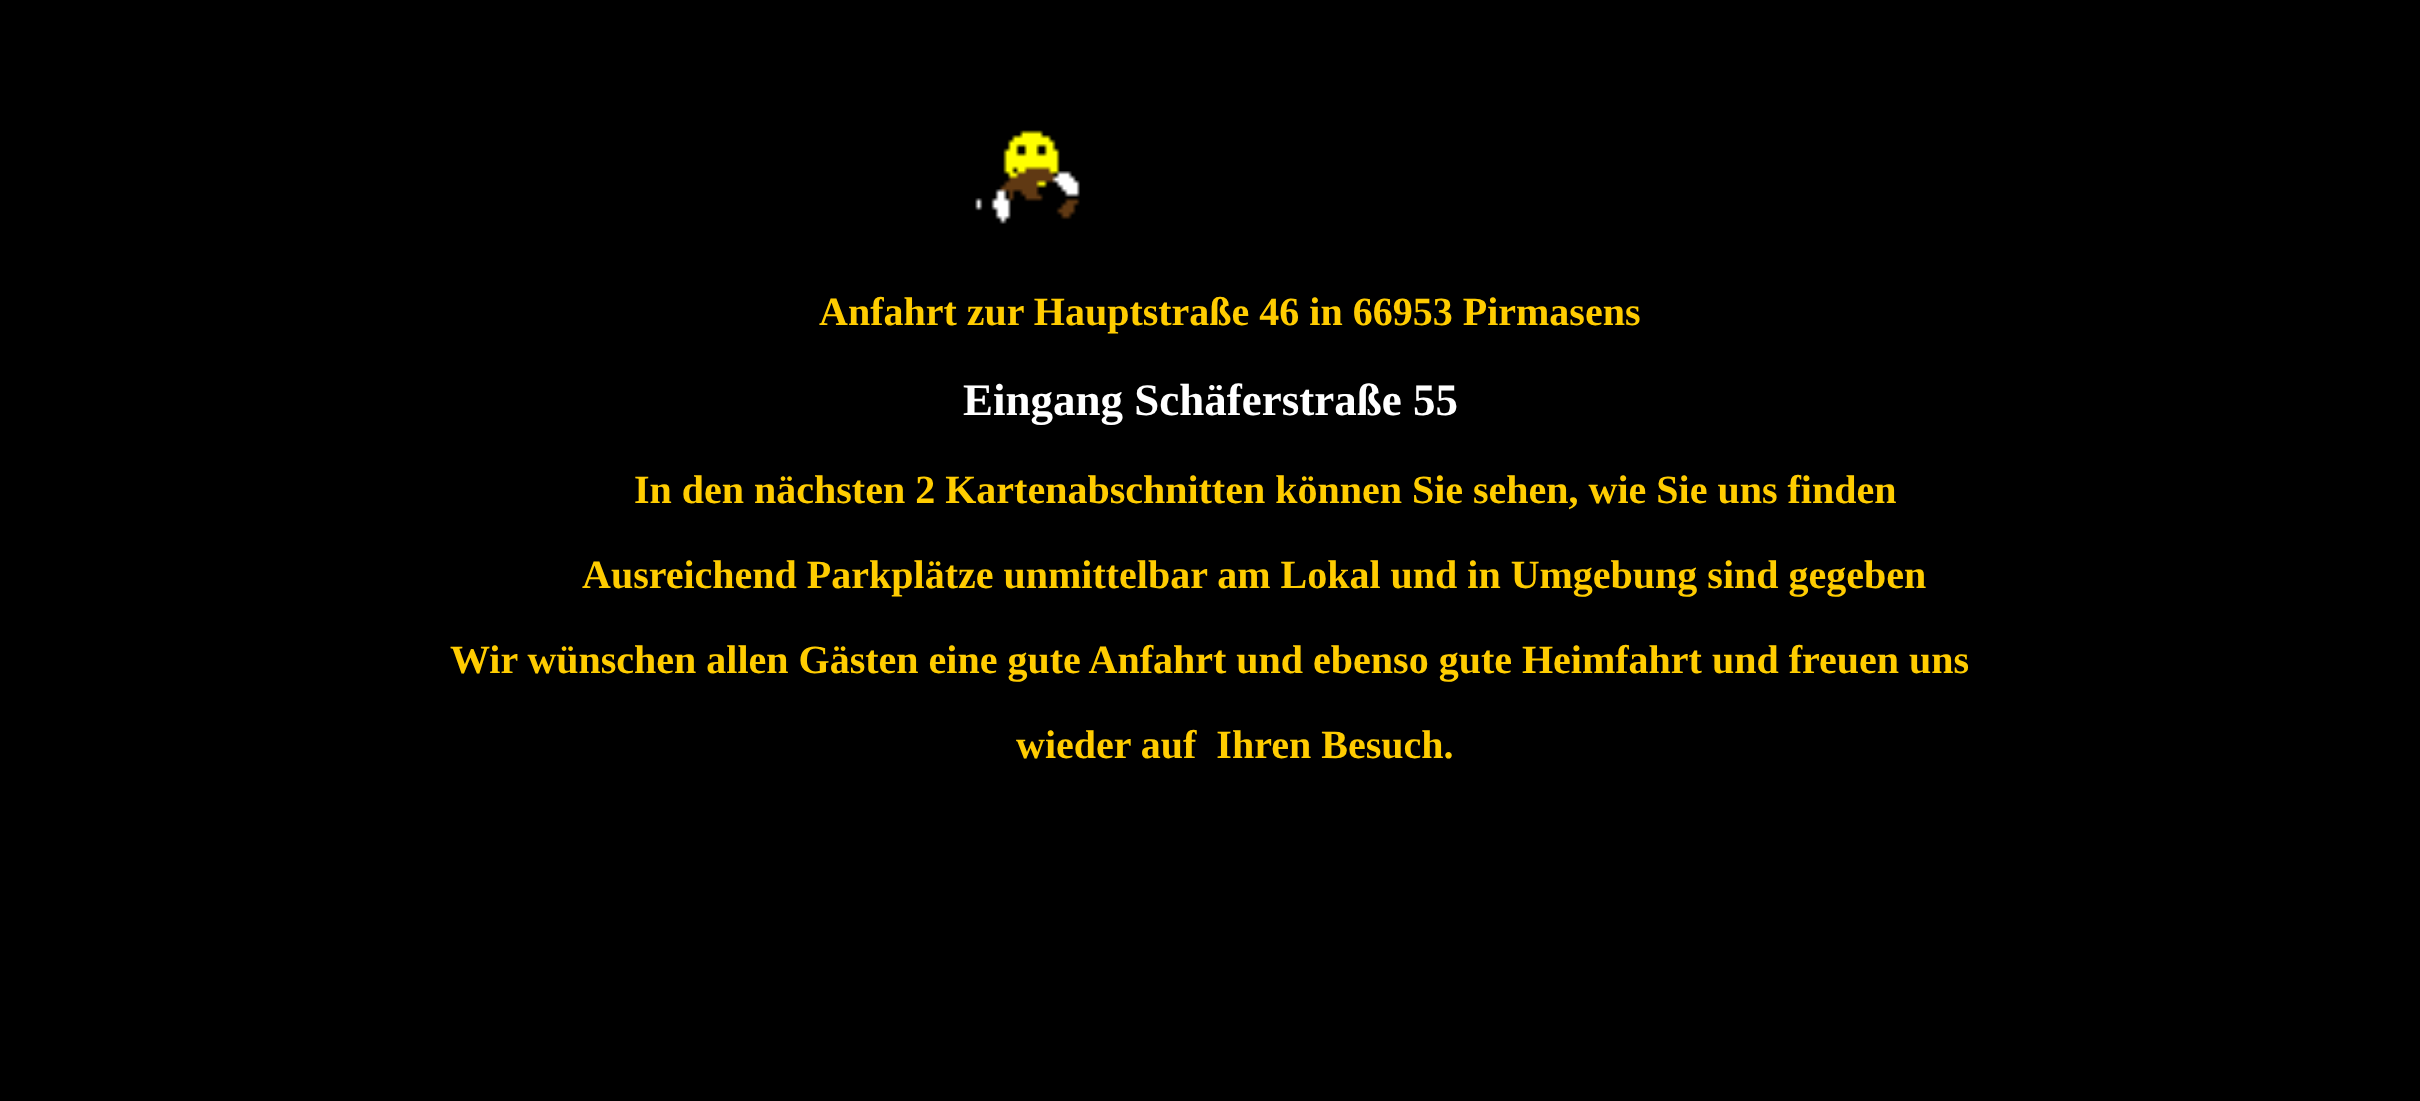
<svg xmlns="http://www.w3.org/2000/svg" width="2420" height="1101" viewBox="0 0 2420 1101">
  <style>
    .t1 { font: bold 40px Liberation Serif; fill: #fc0; }
    .t2 { font: bold 45px Liberation Serif; fill: #fff; }
  </style>
  <rect width="100%" height="100%" fill="#000"/>
  <image x="975" y="130" width="105" height="94" href="images/1.png"/>
  <text x="819" y="325" class="t1">Anfahrt zur Hauptstraße 46 in 66953 Pirmasens</text>
  <text x="963" y="415" class="t2">Eingang Schäferstraße 55</text>
  <text x="634" y="503" class="t1">In den nächsten 2 Kartenabschnitten können Sie sehen, wie Sie uns finden</text>
  <text x="582" y="588" class="t1">Ausreichend Parkplätze unmittelbar am Lokal und in Umgebung sind gegeben</text>
  <text x="450" y="673" class="t1">Wir wünschen allen Gästen eine gute Anfahrt und ebenso gute Heimfahrt und freuen uns</text>
  <text x="1016" y="758" class="t1" xml:space="preserve">wieder auf  Ihren Besuch.</text>
</svg>
